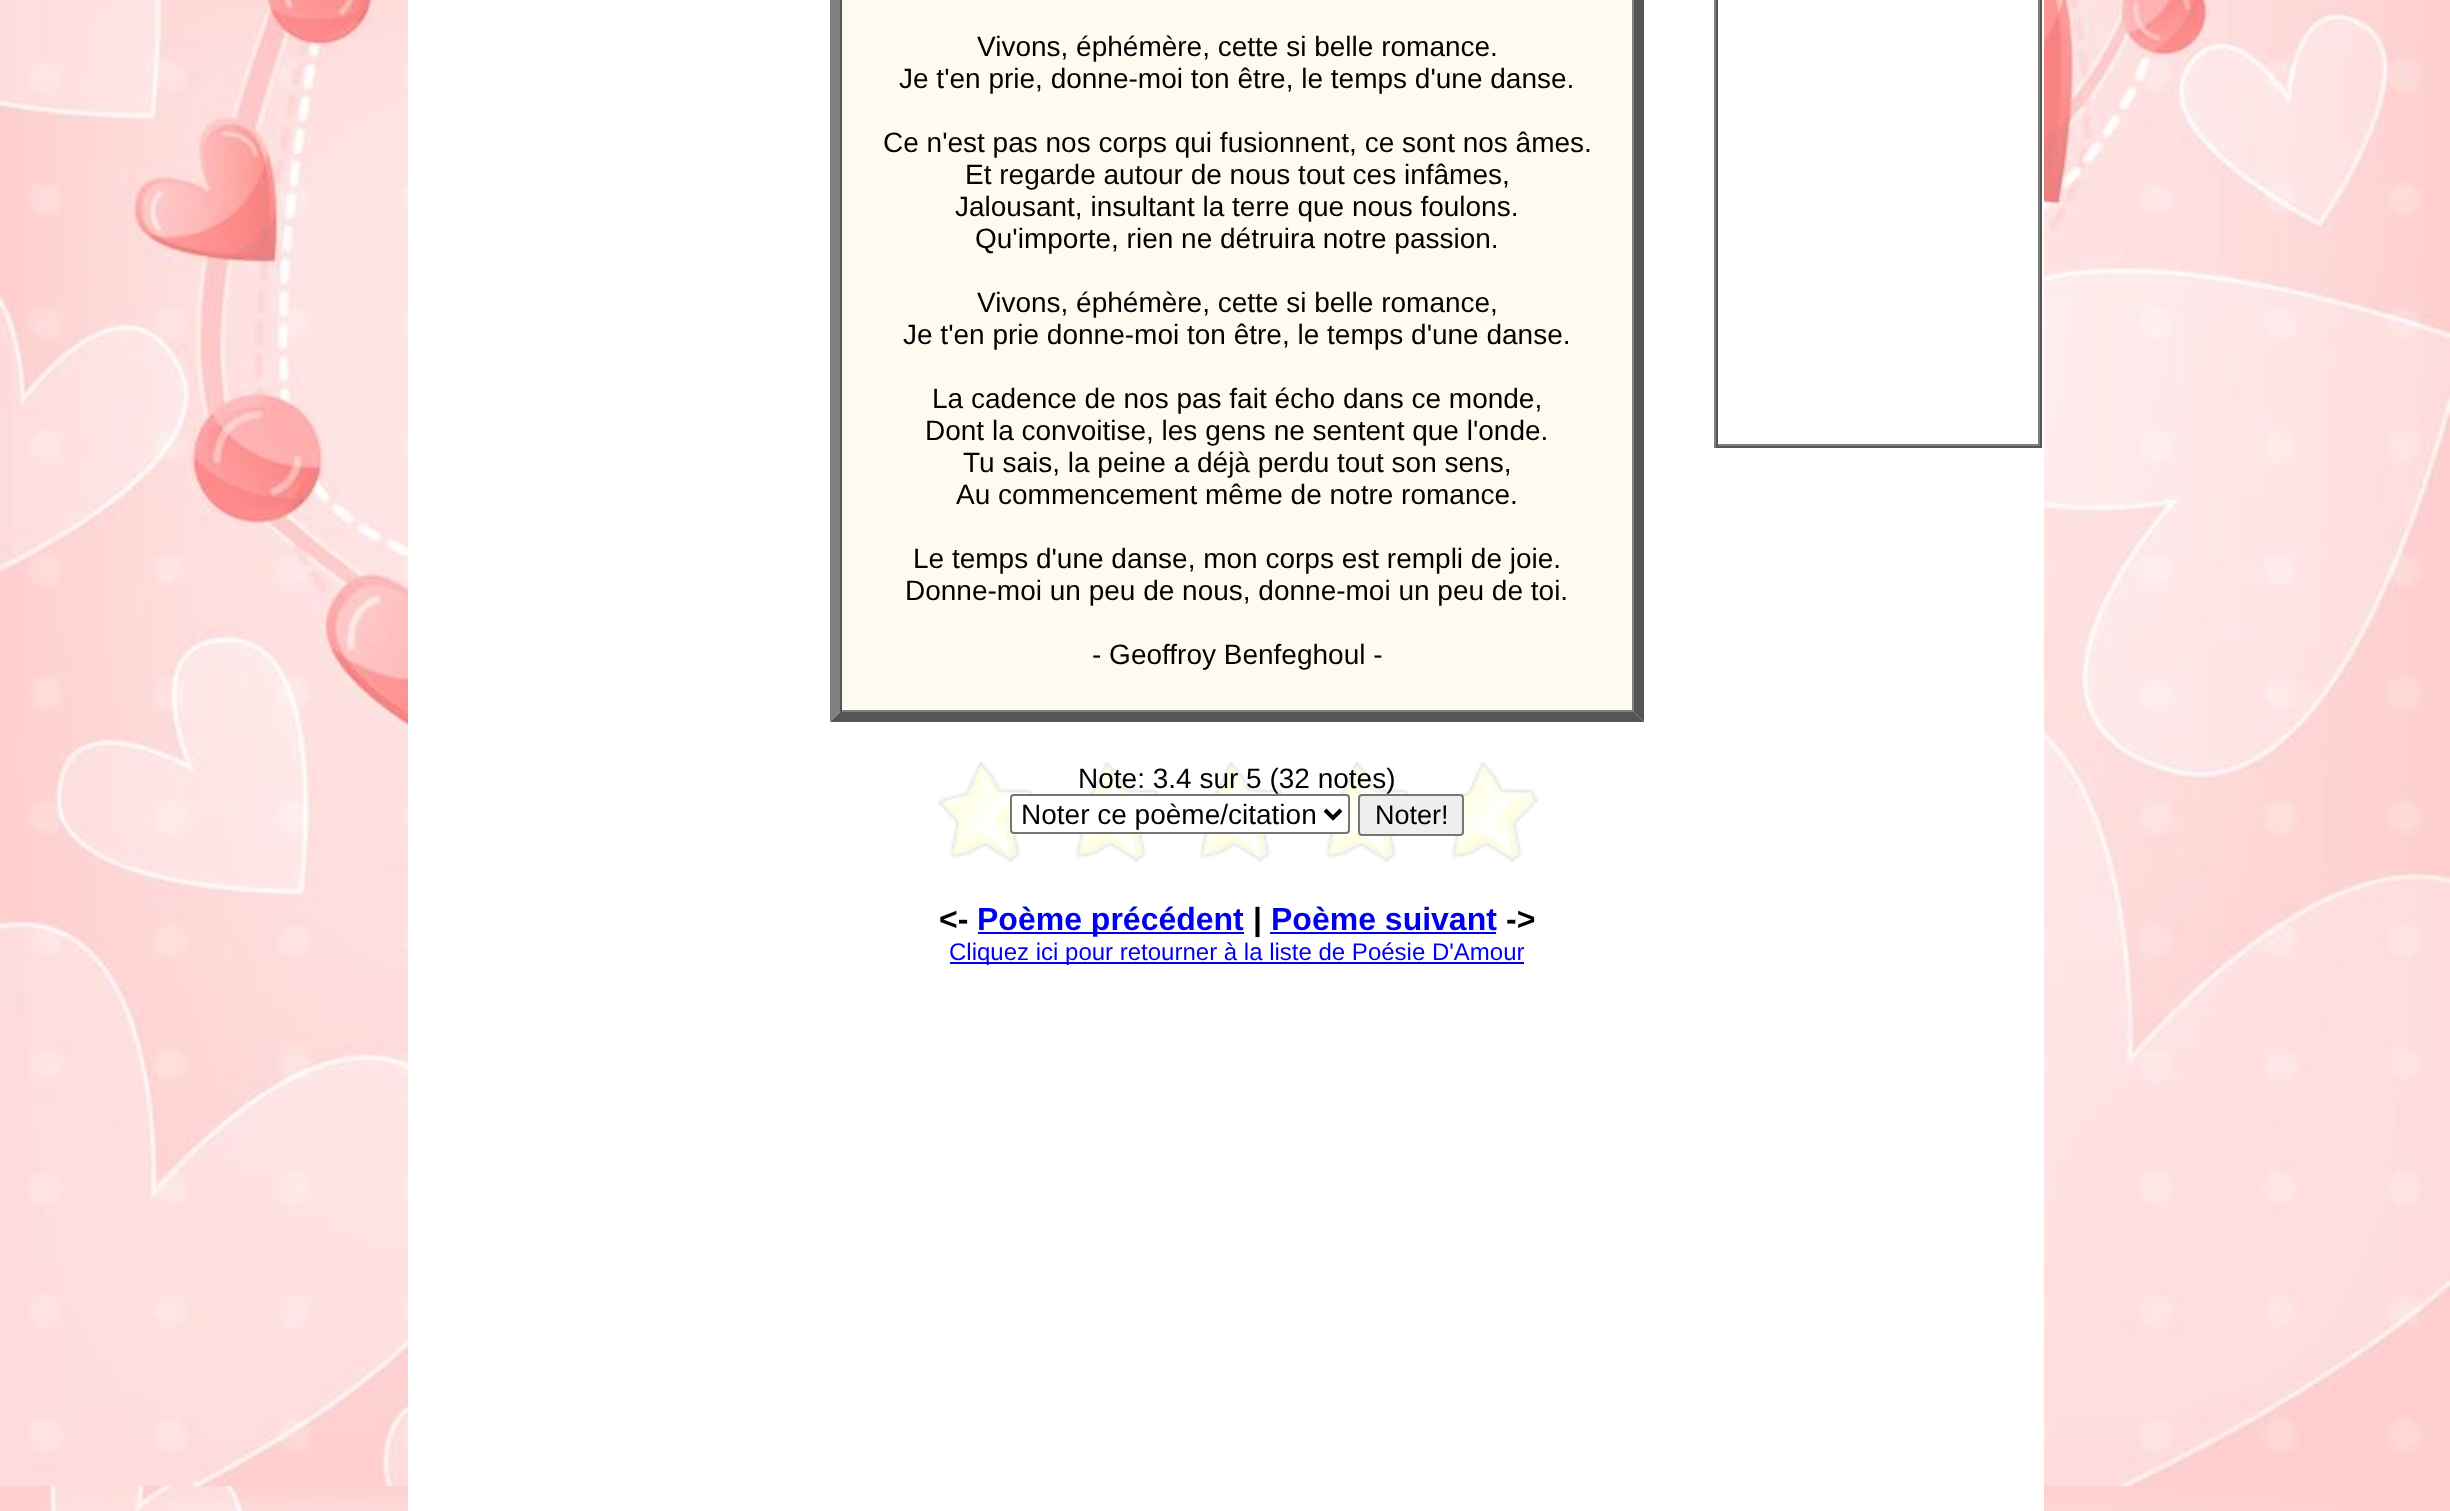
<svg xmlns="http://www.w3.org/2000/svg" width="2450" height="1511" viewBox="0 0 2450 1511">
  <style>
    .t1 { font: 28px Liberation Sans; fill: #000; }
    .t2 { font: 27px Liberation Sans; fill: #000; }
    .t3 { font: bold 32px Liberation Sans; fill: #000; }
    .t4 { font: bold 32px Liberation Sans; fill: #00e; }
    .t5 { font: 24px Liberation Sans; fill: #00e; }
  </style>
  <rect width="100%" height="100%" fill="#fff"/>
  <image x="0" y="0" width="2450" height="1511" href="images/1.png"/>
  <rect x="408" y="0" width="1636" height="1511" fill="#fff"/>
  <rect x="830" y="0" width="814" height="722" fill="#fffaf0"/>
  <path d="M1644-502V722L1634 712V-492Z" fill="#555"/>
  <path d="M1644 722H830L840 712H1634Z" fill="#555"/>
  <path d="M830 722V-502L840-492V712Z" fill="#808080"/>
  <rect x="1632" y="0" width="2" height="712" fill="#808080"/>
  <rect x="840" y="710" width="794" height="2" fill="#808080"/>
  <rect x="840" y="0" width="2" height="712" fill="#555"/>
  <text x="977" y="56" class="t1">Vivons, éphémère, cette si belle romance.</text>
  <text x="899" y="88" class="t1">Je t'en prie, donne-moi ton être, le temps d'une danse.</text>
  <text x="883" y="152" class="t1">Ce n'est pas nos corps qui fusionnent, ce sont nos âmes.</text>
  <text x="965" y="184" class="t1">Et regarde autour de nous tout ces infâmes,</text>
  <text x="955" y="216" class="t1">Jalousant, insultant la terre que nous foulons.</text>
  <text x="975" y="248" class="t1">Qu'importe, rien ne détruira notre passion.</text>
  <text x="977" y="312" class="t1">Vivons, éphémère, cette si belle romance,</text>
  <text x="903" y="344" class="t1">Je t'en prie donne-moi ton être, le temps d'une danse.</text>
  <text x="932" y="408" class="t1">La cadence de nos pas fait écho dans ce monde,</text>
  <text x="925" y="440" class="t1">Dont la convoitise, les gens ne sentent que l'onde.</text>
  <text x="963" y="472" class="t1">Tu sais, la peine a déjà perdu tout son sens,</text>
  <text x="956" y="504" class="t1">Au commencement même de notre romance.</text>
  <text x="913" y="568" class="t1">Le temps d'une danse, mon corps est rempli de joie.</text>
  <text x="905" y="600" class="t1">Donne-moi un peu de nous, donne-moi un peu de toi.</text>
  <text x="1092" y="664" class="t1">- Geoffroy Benfeghoul -</text>
  <image x="938" y="762" width="600" height="100" href="images/2.png"/>
  <text x="1078" y="788" class="t1">Note: 3.4 sur 5 (32 notes)</text>
  <rect x="1011" y="795" width="338" height="38" rx="3" fill="#fff" stroke="#767676" stroke-width="2"/>
  <path d="M1325 810L1333 818L1341 810" fill="none" stroke="#000" stroke-width="4"/>
  <text x="1021" y="824" class="t1">Noter ce poème/citation</text>
  <rect x="1359" y="795" width="104" height="40" rx="3" fill="#efefef" stroke="#767676" stroke-width="2"/>
  <text x="1375" y="824" class="t2">Noter!</text>
  <text x="939" y="930" class="t3">&lt;-</text>
  <rect x="978" y="932" width="266" height="2" fill="#00e"/>
  <text x="977" y="930" class="t4">Poème précédent</text>
  <text x="1253" y="930" class="t3">|</text>
  <text x="1271" y="930" class="t4">Poème suivant</text>
  <rect x="1270" y="932" width="226" height="2" fill="#00e"/>
  <text x="1506" y="930" class="t3">-&gt;</text>
  <rect x="950" y="962" width="574" height="2" fill="#00e"/>
  <text x="949" y="960" class="t5">Cliquez ici pour retourner à la liste de Poésie D'Amour</text>
  <rect x="2040" y="0" width="2" height="448" fill="#555"/>
  <rect x="1714" y="446" width="328" height="2" fill="#555"/>
  <rect x="1714" y="0" width="2" height="448" fill="#808080"/>
  <rect x="2038" y="0" width="2" height="446" fill="#808080"/>
  <rect x="1716" y="444" width="324" height="2" fill="#808080"/>
  <rect x="1716" y="0" width="2" height="446" fill="#555"/>
</svg>
